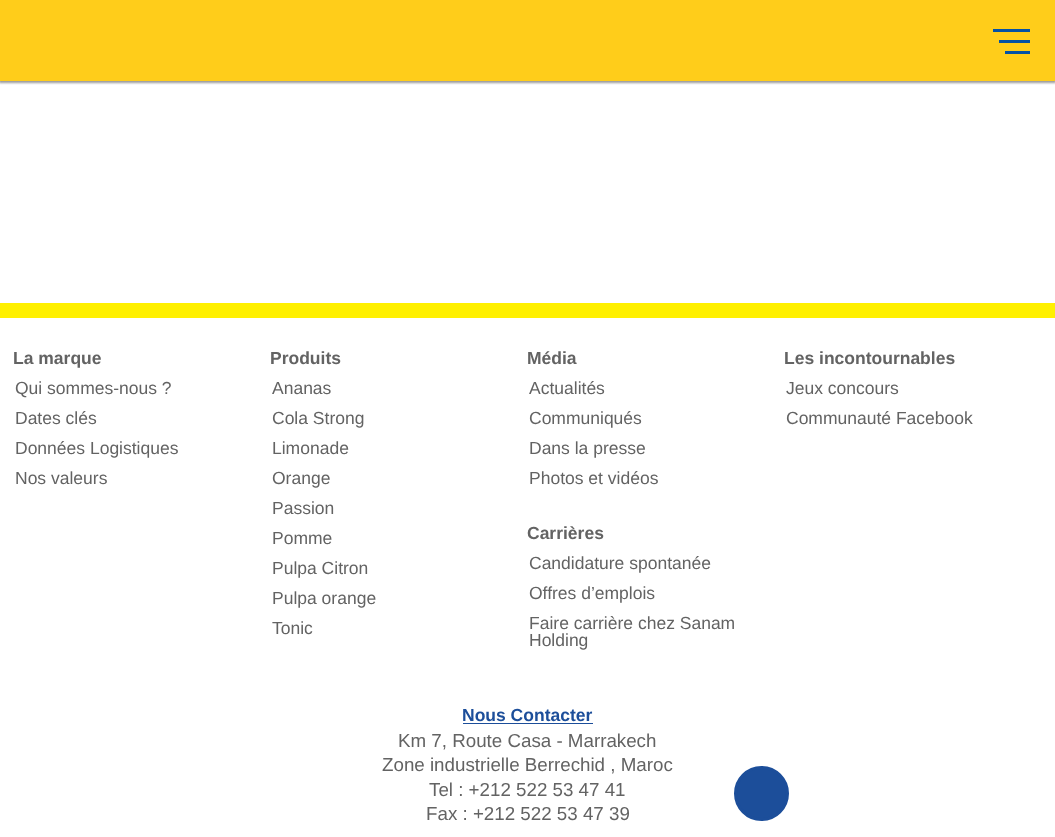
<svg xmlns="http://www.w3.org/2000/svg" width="1055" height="837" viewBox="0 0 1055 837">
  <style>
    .t1 { font: bold 17.5px Liberation Sans; fill: #636363; }
    .t2 { font: 17.5px Liberation Sans; fill: #636363; }
    .t3 { font: bold 17.5px Liberation Sans; fill: #1c4e9a; }
    .t4 { font: 18.75px Liberation Sans; fill: #636363; }
  </style>
  <rect width="100%" height="100%" fill="#fff"/>
  <rect x="-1" y="-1" width="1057" height="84" fill="#00000066" filter="blur(1px)"/>
  <rect x="0" y="0" width="1055" height="81" fill="#ffcd1a"/>
  <rect x="993" y="29" width="37" height="3" fill="#0452a6"/>
  <rect x="999" y="40" width="31" height="3" fill="#0452a6"/>
  <rect x="1005" y="51" width="25" height="3" fill="#0452a6"/>
  <rect x="0" y="303" width="1055" height="15" fill="#fff000"/>
  <text x="13" y="364" class="t1">La marque</text>
  <text x="15" y="394" class="t2">Qui sommes-nous ?</text>
  <text x="15" y="424" class="t2">Dates clés</text>
  <text x="15" y="454" class="t2">Données Logistiques</text>
  <text x="15" y="484" class="t2">Nos valeurs</text>
  <text x="270" y="364" class="t1">Produits</text>
  <text x="272" y="394" class="t2">Ananas</text>
  <text x="272" y="424" class="t2">Cola Strong</text>
  <text x="272" y="454" class="t2">Limonade</text>
  <text x="272" y="484" class="t2">Orange</text>
  <text x="272" y="514" class="t2">Passion</text>
  <text x="272" y="544" class="t2">Pomme</text>
  <text x="272" y="574" class="t2">Pulpa Citron</text>
  <text x="272" y="604" class="t2">Pulpa orange</text>
  <text x="272" y="634" class="t2">Tonic</text>
  <text x="527" y="364" class="t1">Média</text>
  <text x="529" y="394" class="t2">Actualités</text>
  <text x="529" y="424" class="t2">Communiqués</text>
  <text x="529" y="454" class="t2">Dans la presse</text>
  <text x="529" y="484" class="t2">Photos et vidéos</text>
  <text x="527" y="539" class="t1">Carrières</text>
  <text x="529" y="569" class="t2">Candidature spontanée</text>
  <text x="529" y="599" class="t2">Offres d’emplois</text>
  <text x="529" y="629" class="t2">Faire carrière chez Sanam</text>
  <text x="529" y="646" class="t2">Holding</text>
  <text x="784" y="364" class="t1">Les incontournables</text>
  <text x="786" y="394" class="t2">Jeux concours</text>
  <text x="786" y="424" class="t2">Communauté Facebook</text>
  <text x="462" y="721" class="t3">Nous Contacter</text>
  <rect x="463" y="723" width="130" height="1" fill="#1c4e9a"/>
  <text x="398" y="747" class="t4">Km 7, Route Casa - Marrakech</text>
  <text x="382" y="771" class="t4">Zone industrielle Berrechid , Maroc</text>
  <text x="429" y="796" class="t4">Tel : +212 522 53 47 41</text>
  <text x="426" y="820" class="t4">Fax : +212 522 53 47 39</text>
  <circle cx="761.5" cy="793.5" r="26" fill="#1c4e9a" stroke="#1c4e9a" stroke-width="3"/>
</svg>
